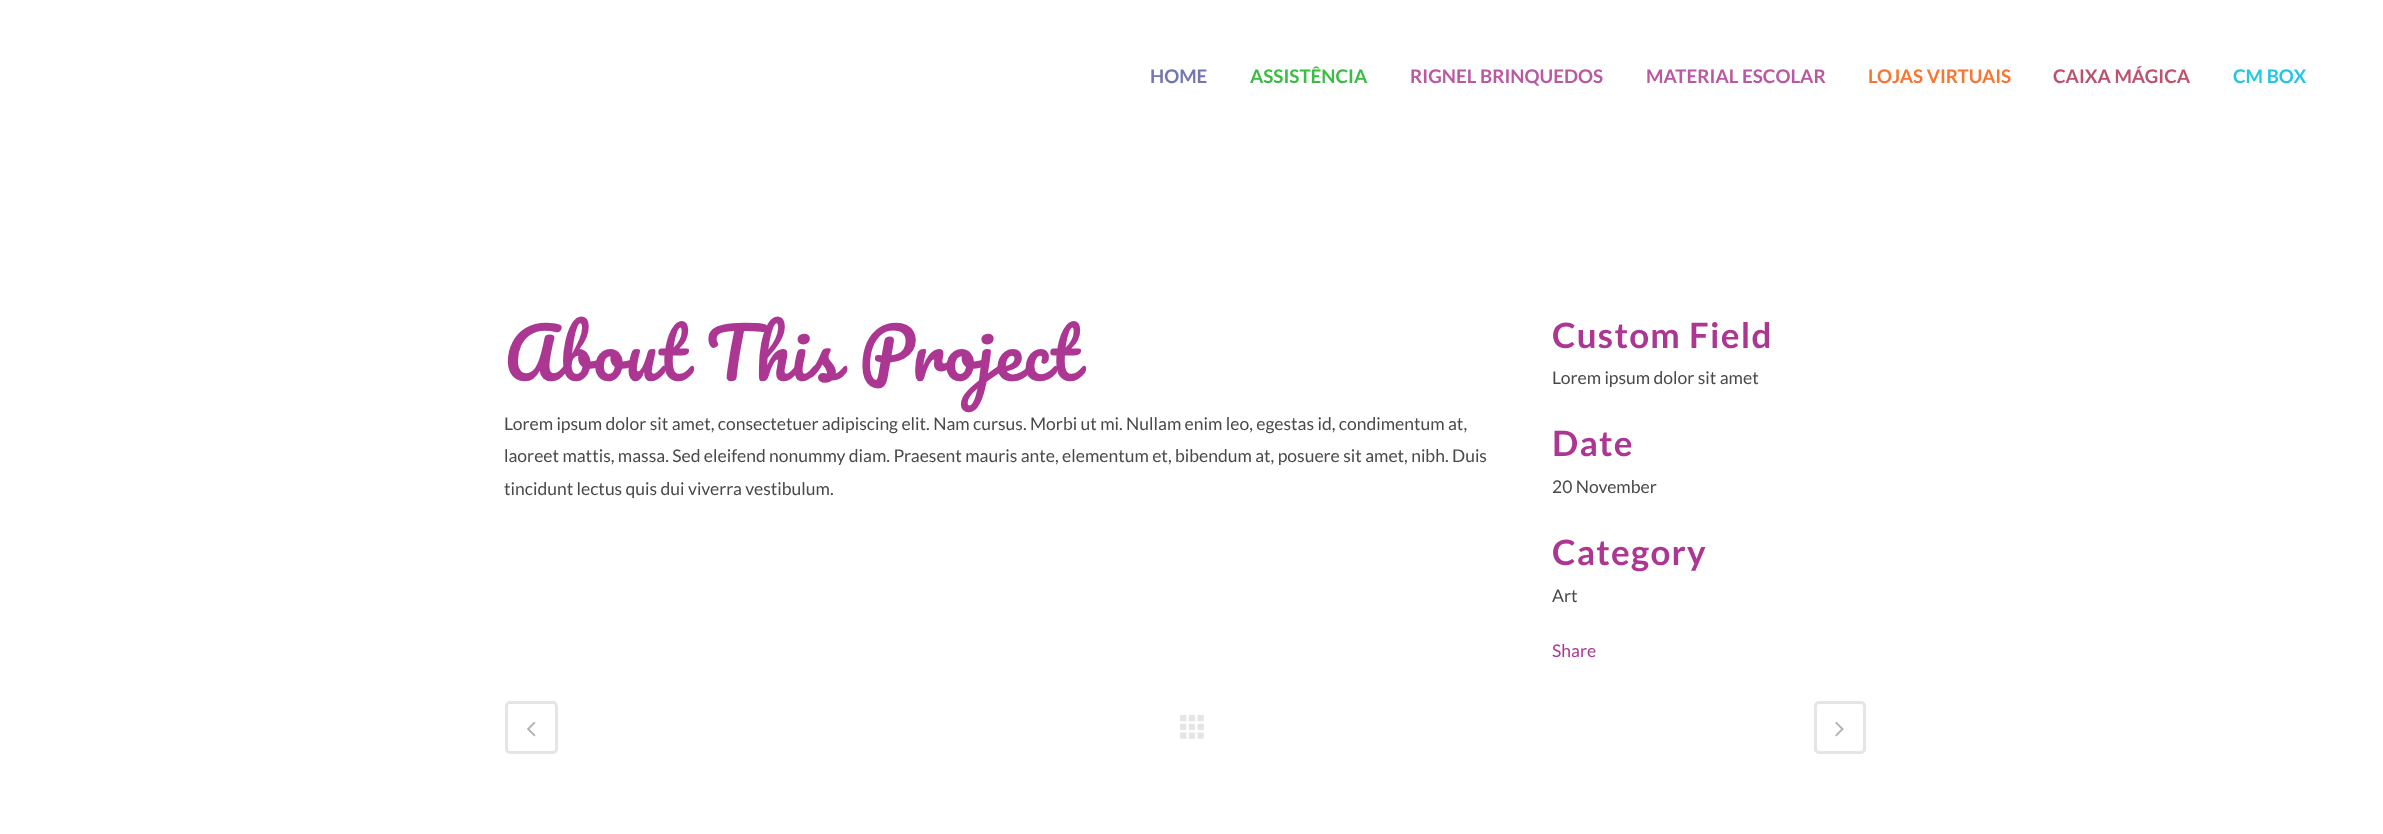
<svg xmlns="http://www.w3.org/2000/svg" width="2383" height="834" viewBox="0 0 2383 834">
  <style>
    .t1 { font: bold 18.75px Lato; fill: #7477ad; }
    .t2 { font: bold 18.75px Lato; fill: #3abc45; }
    .t3 { font: bold 18.75px Lato; fill: #b859a2; }
    .t4 { font: bold 18.75px Lato; fill: #f67633; }
    .t5 { font: bold 18.75px Lato; fill: #bb536f; }
    .t6 { font: bold 18.75px Lato; fill: #23c7e0; }
    .t7 { font: 68.75px Pacifico; letter-spacing: 1.25px; fill: #ac3793; }
    .t8 { font: 17.5px Lato; fill: #494949; }
    .t9 { font: bold 35px Lato; letter-spacing: 1.25px; fill: #ac3793; }
    .t10 { font: 17.5px Lato; fill: #ac3793; }
  </style>
  <rect width="100%" height="100%" fill="#fff"/>
  <text x="1150" y="83" class="t1">HOME</text>
  <text x="1250" y="83" class="t2">ASSISTÊNCIA</text>
  <text x="1410" y="83" class="t3">RIGNEL BRINQUEDOS</text>
  <text x="1646" y="83" class="t3">MATERIAL ESCOLAR</text>
  <text x="1868" y="83" class="t4">LOJAS VIRTUAIS</text>
  <text x="2053" y="83" class="t5">CAIXA MÁGICA</text>
  <text x="2233" y="83" class="t6">CM BOX</text>
  <text x="504" y="381" class="t7">About This Project</text>
  <text x="504" y="430" class="t8">Lorem ipsum dolor sit amet, consectetuer adipiscing elit. Nam cursus. Morbi ut mi. Nullam enim leo, egestas id, condimentum at,</text>
  <text x="504" y="462" class="t8">laoreet mattis, massa. Sed eleifend nonummy diam. Praesent mauris ante, elementum et, bibendum at, posuere sit amet, nibh. Duis</text>
  <text x="504" y="495" class="t8">tincidunt lectus quis dui viverra vestibulum.</text>
  <text x="1552" y="348" class="t9">Custom Field</text>
  <text x="1552" y="384" class="t8">Lorem ipsum dolor sit amet</text>
  <text x="1552" y="456" class="t9">Date</text>
  <text x="1552" y="493" class="t8">20 November</text>
  <text x="1552" y="565" class="t9">Category</text>
  <text x="1552" y="602" class="t8">Art</text>
  <text x="1552" y="657" class="t10">Share</text>
  <rect x="506.5" y="702.5" width="50" height="50" rx="3.5" fill="none" stroke="#e5e5e5" stroke-width="3"/>
  <image x="527" y="721" width="9" height="16" href="images/1.png"/>
  <image x="1180" y="715" width="24" height="24" href="images/2.png"/>
  <rect x="1815.5" y="702.5" width="49" height="50" rx="3.5" fill="none" stroke="#e5e5e5" stroke-width="3"/>
  <image x="1835" y="721" width="9" height="16" href="images/3.png"/>
</svg>
